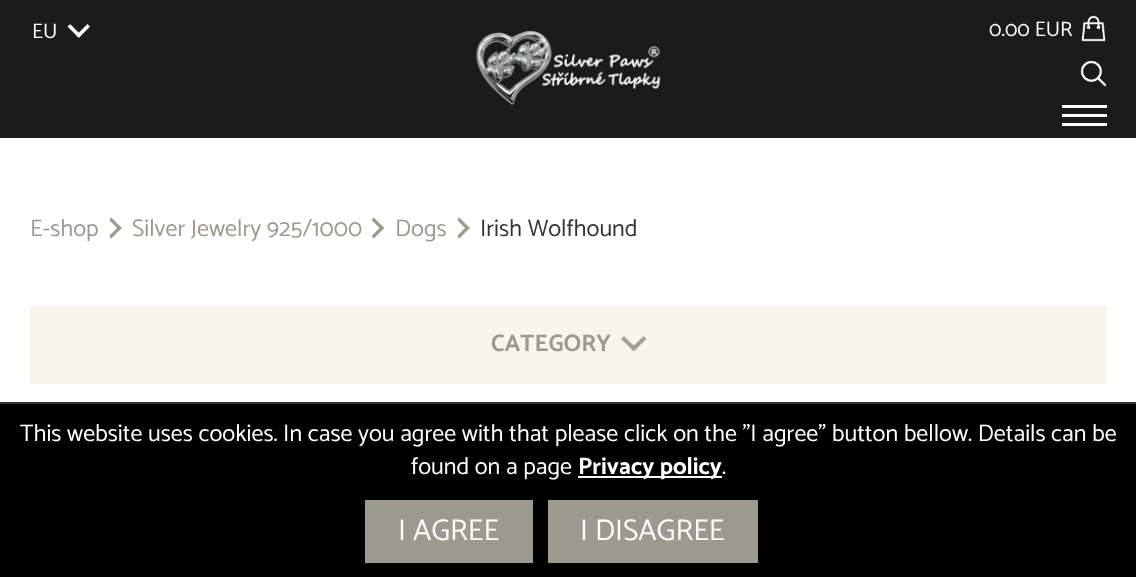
<svg xmlns="http://www.w3.org/2000/svg" width="1136" height="577" viewBox="0 0 1136 577">
  <style>
    .t1 { font: 21px Catamaran; fill: #fff; }
    .t2 { font: 24px Catamaran; fill: #9c9a8f; }
    .t3 { font: 24px Catamaran; fill: #333; }
    .t4 { font: bold 24px Catamaran; fill: #9c9a8f; }
    .t5 { font: 24px Catamaran; fill: #fff; }
    .t6 { font: bold 24px Catamaran; fill: #fff; }
    .t7 { font: 30px Catamaran; fill: #fff; }
  </style>
  <rect width="100%" height="100%" fill="#fff"/>
  <rect x="0" y="0" width="1136" height="138" fill="#1b1b1b"/>
  <rect x="1062" y="105" width="45" height="3" fill="#fff"/>
  <rect x="1062" y="114" width="45" height="3" fill="#fff"/>
  <rect x="1062" y="123" width="45" height="3" fill="#fff"/>
  <text x="32" y="38" class="t1">EU</text>
  <image x="67" y="24" width="23" height="14" href="images/1.png"/>
  <image x="476" y="30" width="185" height="75" href="images/2.png"/>
  <text x="989" y="36" class="t1">0.00 EUR</text>
  <image x="1081" y="15" width="25" height="27" href="images/3.png"/>
  <image x="1080" y="60" width="27" height="27" href="images/4.png"/>
  <text x="30" y="236" class="t2">E-shop</text>
  <image x="109" y="217" width="13" height="22" href="images/5.png"/>
  <text x="132" y="236" class="t2">Silver Jewelry 925/1000</text>
  <image x="372" y="217" width="12" height="22" href="images/6.png"/>
  <text x="395" y="236" class="t2">Dogs</text>
  <image x="457" y="217" width="13" height="22" href="images/5.png"/>
  <text x="480" y="236" class="t3">Irish Wolfhound</text>
  <rect x="30" y="306" width="1077" height="78" fill="#f7f5ec"/>
  <text x="491" y="351" class="t4">CATEGORY</text>
  <image x="621" y="336" width="26" height="15" href="images/7.png"/>
  <rect x="0" y="404" width="1136" height="173" fill="#000"/>
  <rect x="0" y="402" width="1136" height="2" fill="#333"/>
  <text x="20" y="441" class="t5">This website uses cookies. In case you agree with that please click on the "I agree" button bellow. Details can be</text>
  <text x="411" y="474" class="t5">found on a page</text>
  <rect x="578" y="476" width="144" height="2" fill="#fff"/>
  <text x="578" y="474" class="t6">Privacy policy</text>
  <text x="722" y="474" class="t5">.</text>
  <rect x="365" y="500" width="168" height="63" fill="#9c9a8f"/>
  <text x="398" y="540" class="t7">I AGREE</text>
  <rect x="548" y="500" width="210" height="63" fill="#9c9a8f"/>
  <text x="580" y="540" class="t7">I DISAGREE</text>
</svg>
